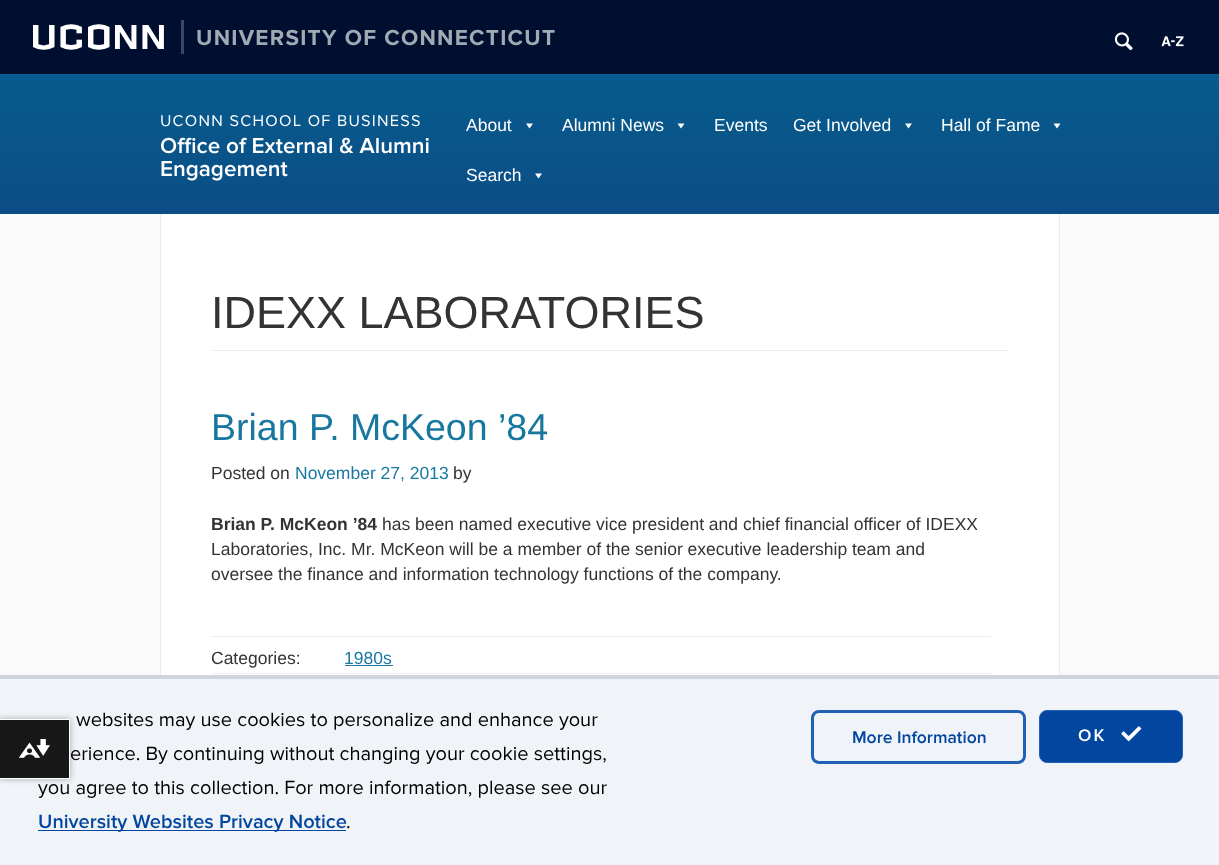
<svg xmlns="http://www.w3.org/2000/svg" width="1219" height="865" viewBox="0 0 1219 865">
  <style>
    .t1 { font: 40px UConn; letter-spacing: 3.75px; fill: #fff; }
    .t2 { font: bold 22.5px Proxima Nova; letter-spacing: 1.25px; fill: #9faab2; }
    .t3 { font: 16.25px Proxima Nova; letter-spacing: 1.25px; fill: #fff; }
    .t4 { font: 600 22.5px Proxima Nova; fill: #fff; }
    .t5 { font: 17.5px Liberation Sans; fill: #fff; }
    .t6 { font: 45px Liberation Sans; fill: #333; }
    .t7 { font: 37.5px Liberation Sans; fill: #1877a0; }
    .t8 { font: 17.5px Liberation Sans; fill: #333; }
    .t9 { font: 17.5px Liberation Sans; fill: #1877a0; }
    .t10 { font: bold 17.5px Liberation Sans; fill: #333; }
    .t11 { font: 20px Proxima Nova; fill: #000; }
    .t12 { font: 600 20px Proxima Nova; fill: #03469f; }
    .t13 { font: 600 17.5px Proxima Nova; fill: #03469f; }
    .t14 { font: 600 17.5px Proxima Nova; letter-spacing: 2px; fill: #fff; }
  </style>
  <defs>
    <linearGradient id="g1" gradientUnits="userSpaceOnUse" x1="610" y1="75" x2="610" y2="214"><stop offset="0" stop-color="#075b8e"/><stop offset="1" stop-color="#0b4e85"/></linearGradient>
    <clipPath id="clip1"><path d="M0 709H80V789H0ZM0 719H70V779H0Z" clip-rule="evenodd"/></clipPath>
  </defs>
  <rect width="100%" height="100%" fill="#fafafa"/>
  <rect x="0" y="0" width="1219" height="74" fill="#000e2f"/>
  <text x="33" y="49" class="t1">UCONN</text>
  <text x="196" y="45" class="t2">UNIVERSITY OF CONNECTICUT</text>
  <rect x="181" y="20" width="3" height="34" fill="#3f4760"/>
  <image x="1114" y="32" width="19" height="19" href="images/1.png"/>
  <image x="1161" y="36" width="23" height="11" href="images/2.png"/>
  <rect x="0" y="75" width="1219" height="139" fill="url(#g1)"/>
  <rect x="0" y="74" width="1219" height="1" fill="#076093"/>
  <text x="160" y="126" class="t3">UCONN SCHOOL OF BUSINESS</text>
  <text x="160" y="153" class="t4">Office of External &amp; Alumni</text>
  <text x="160" y="176" class="t4">Engagement</text>
  <text x="466" y="131" class="t5">About</text>
  <path d="M533 123.5L529.5 128.5L526 123.5Z" fill="#fff"/>
  <text x="562" y="131" class="t5">Alumni News</text>
  <path d="M684.5 123.5L681 128.5L677.5 123.5Z" fill="#fff"/>
  <text x="714" y="131" class="t5">Events</text>
  <text x="793" y="131" class="t5">Get Involved</text>
  <path d="M912 123.5L908.5 128.5L905 123.5Z" fill="#fff"/>
  <text x="941" y="131" class="t5">Hall of Fame</text>
  <path d="M1060.5 123.5L1057 128.5L1053.5 123.5Z" fill="#fff"/>
  <text x="466" y="181" class="t5">Search</text>
  <path d="M542 173.5L538.5 178.5L535 173.5Z" fill="#fff"/>
  <rect x="161" y="214" width="898" height="461" fill="#fff"/>
  <rect x="1059" y="214" width="1" height="461" fill="#ebebeb"/>
  <rect x="160" y="214" width="1" height="461" fill="#ebebeb"/>
  <text x="211" y="328" class="t6">IDEXX LABORATORIES</text>
  <rect x="211" y="350" width="798" height="1" fill="#eee"/>
  <text x="211" y="440" class="t7">Brian P. McKeon ’84</text>
  <text x="211" y="479" class="t8">Posted on</text>
  <text x="295" y="479" class="t9">November 27, 2013</text>
  <text x="453" y="479" class="t8">by</text>
  <text x="211" y="530" class="t10">Brian P. McKeon ’84</text>
  <text x="382" y="530" class="t8">has been named executive vice president and chief financial officer of IDEXX</text>
  <text x="211" y="555" class="t8">Laboratories, Inc. Mr. McKeon will be a member of the senior executive leadership team and</text>
  <text x="211" y="580" class="t8">oversee the finance and information technology functions of the company.</text>
  <rect x="211" y="636" width="780" height="1" fill="#eee"/>
  <text x="211" y="664" class="t8">Categories:</text>
  <text x="344" y="664" class="t9">1980s</text>
  <rect x="345" y="665" width="48" height="1" fill="#1877a0"/>
  <rect x="211" y="673" width="780" height="1" fill="#eee"/>
  <rect x="0" y="679" width="1219" height="186" fill="#f0f3f7"/>
  <g clip-path="url(#clip1)">
    <rect x="0" y="719" width="70" height="60" fill="#0000004d" filter="blur(3px)"/>
  </g>
  <rect x="0" y="720" width="69" height="58" fill="#000000e6"/>
  <rect x="0" y="719" width="70" height="1" fill="#fff"/>
  <rect x="69" y="719" width="1" height="60" fill="#fff"/>
  <rect x="0" y="778" width="70" height="1" fill="#fff"/>
  <image x="19" y="739" width="31" height="19" href="images/3.png"/>
  <rect x="0" y="675" width="1219" height="4" fill="#cfd5dd"/>
  <text x="76" y="726" class="t11">websites may use cookies to personalize and enhance your</text>
  <text x="70" y="760" class="t11">erience. By continuing without changing your cookie settings,</text>
  <text x="38" y="794" class="t11">you agree to this collection. For more information, please see our</text>
  <rect x="38" y="830" width="308" height="1" fill="#03469f"/>
  <text x="38" y="828" class="t12">University Websites Privacy Notice</text>
  <text x="346" y="828" class="t11">.</text>
  <rect x="812.5" y="711.5" width="212" height="51" rx="6.5" fill="none" stroke="#2061b6" stroke-width="3"/>
  <text x="852" y="743" class="t13">More Information</text>
  <rect x="1039.5" y="710.5" width="143" height="52" rx="7.5" fill="#03469f" stroke="#2061b6"/>
  <text x="1078" y="741" class="t14">OK</text>
  <image x="1121" y="726" width="21" height="16" href="images/4.png"/>
</svg>
